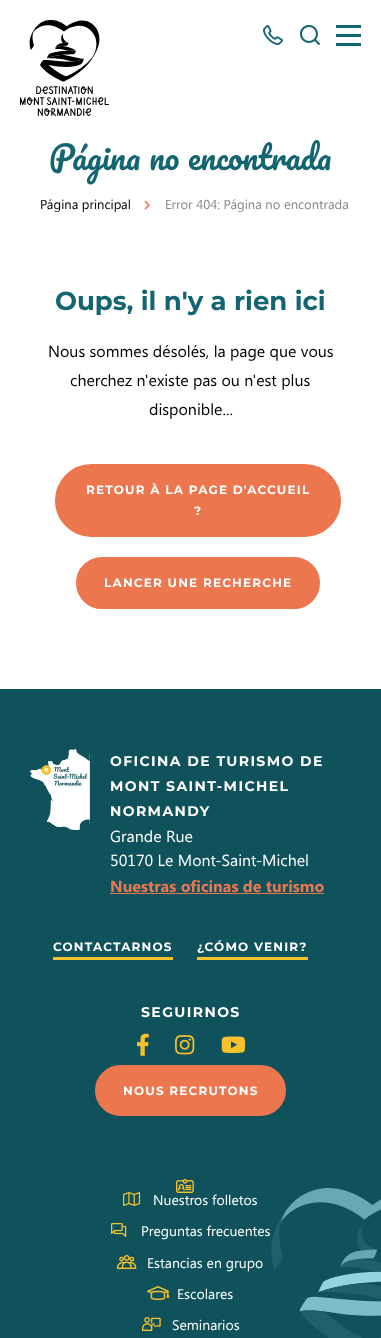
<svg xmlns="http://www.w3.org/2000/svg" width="381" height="1338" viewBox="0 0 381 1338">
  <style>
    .t1 { font: 32px Pacifico; fill: #146572; }
    .t2 { font: 13px Segoe UI; fill: #000; }
    .t3 { font: 13px Segoe UI; fill: #888; }
    .t4 { font: bold 26px Montserrat; fill: #146572; }
    .t5 { font: 16px Segoe UI; fill: #000; }
    .t6 { font: bold 12px Montserrat; letter-spacing: 1.2px; fill: #fff; }
    .t7 { font: bold 14px Montserrat; letter-spacing: 1.4px; fill: #fff; }
    .t8 { font: 16px Segoe UI; fill: #fff; }
    .t9 { font: bold 16px Segoe UI; fill: #ec764e; }
    .t10 { font: 14px Segoe UI; fill: #fff; }
  </style>
  <rect width="100%" height="100%" fill="#fff"/>
  <image x="20" y="20" width="89" height="96" href="images/1.png"/>
  <image x="263" y="25" width="20" height="20" href="images/2.png"/>
  <image x="300" y="25" width="20" height="20" href="images/3.png"/>
  <rect x="336" y="34" width="25" height="3" fill="#146572"/>
  <rect x="336" y="25" width="25" height="3" fill="#146572"/>
  <rect x="336" y="43" width="25" height="3" fill="#146572"/>
  <text x="49" y="170" class="t1">Página no encontrada</text>
  <text x="40" y="209" class="t2">Página principal</text>
  <image x="144" y="200" width="6" height="10" href="images/4.png"/>
  <text x="165" y="209" class="t3">Error 404: Página no encontrada</text>
  <text x="55" y="310" class="t4">Oups, il n'y a rien ici</text>
  <text x="48" y="357" class="t5">Nous sommes désolés, la page que vous</text>
  <text x="70" y="386" class="t5">cherchez n'existe pas ou n'est plus</text>
  <text x="149" y="415" class="t5">disponible...</text>
  <rect x="56" y="465" width="284" height="71" rx="35.5" fill="#ec764e" stroke="#ec764e" stroke-width="2"/>
  <text x="86" y="494" class="t6">RETOUR À LA PAGE D'ACCUEIL</text>
  <text x="194" y="515" class="t6">?</text>
  <rect x="77" y="558" width="242" height="50" rx="25" fill="#ec764e" stroke="#ec764e" stroke-width="2"/>
  <text x="104" y="587" class="t6">LANCER UNE RECHERCHE</text>
  <rect x="0" y="689" width="381" height="649" fill="#10525c"/>
  <image x="271" y="1188" width="110" height="150" href="images/5.png"/>
  <image x="30" y="749" width="60" height="81" href="images/6.png"/>
  <text x="110" y="766" class="t7">OFICINA DE TURISMO DE</text>
  <text x="110" y="791" class="t7">MONT SAINT-MICHEL</text>
  <text x="110" y="816" class="t7">NORMANDY</text>
  <text x="110" y="842" class="t8">Grande Rue</text>
  <text x="110" y="866" class="t8">50170 Le Mont-Saint-Michel</text>
  <text x="110" y="892" class="t9">Nuestras oficinas de turismo</text>
  <rect x="110" y="893" width="214" height="1" fill="#ec764e"/>
  <text x="53" y="951" class="t6">CONTACTARNOS</text>
  <rect x="53" y="957" width="120" height="3" fill="#f7c12d"/>
  <text x="197" y="951" class="t6">¿CÓMO VENIR?</text>
  <rect x="197" y="957" width="111" height="3" fill="#f7c12d"/>
  <text x="141" y="1017" class="t7">SEGUIRNOS</text>
  <image x="137" y="1033" width="12" height="23" href="images/7.png"/>
  <image x="175" y="1035" width="20" height="20" href="images/8.png"/>
  <image x="221" y="1036" width="25" height="17" href="images/9.png"/>
  <rect x="96" y="1066" width="189" height="49" rx="24.5" fill="#ec764e" stroke="#ec764e" stroke-width="2"/>
  <text x="123" y="1095" class="t6">NOUS RECRUTONS</text>
  <image x="176" y="1179" width="18" height="14" href="images/10.png"/>
  <image x="123" y="1192" width="18" height="14" href="images/11.png"/>
  <text x="153" y="1205" class="t10">Nuestros folletos</text>
  <image x="111" y="1223" width="16" height="14" href="images/12.png"/>
  <text x="141" y="1236" class="t10">Preguntas frecuentes</text>
  <image x="117" y="1255" width="20" height="14" href="images/13.png"/>
  <text x="147" y="1268" class="t10">Estancias en grupo</text>
  <image x="147" y="1286" width="23" height="14" href="images/14.png"/>
  <text x="177" y="1299" class="t10">Escolares</text>
  <image x="142" y="1317" width="19" height="14" href="images/15.png"/>
  <text x="172" y="1330" class="t10">Seminarios</text>
</svg>
